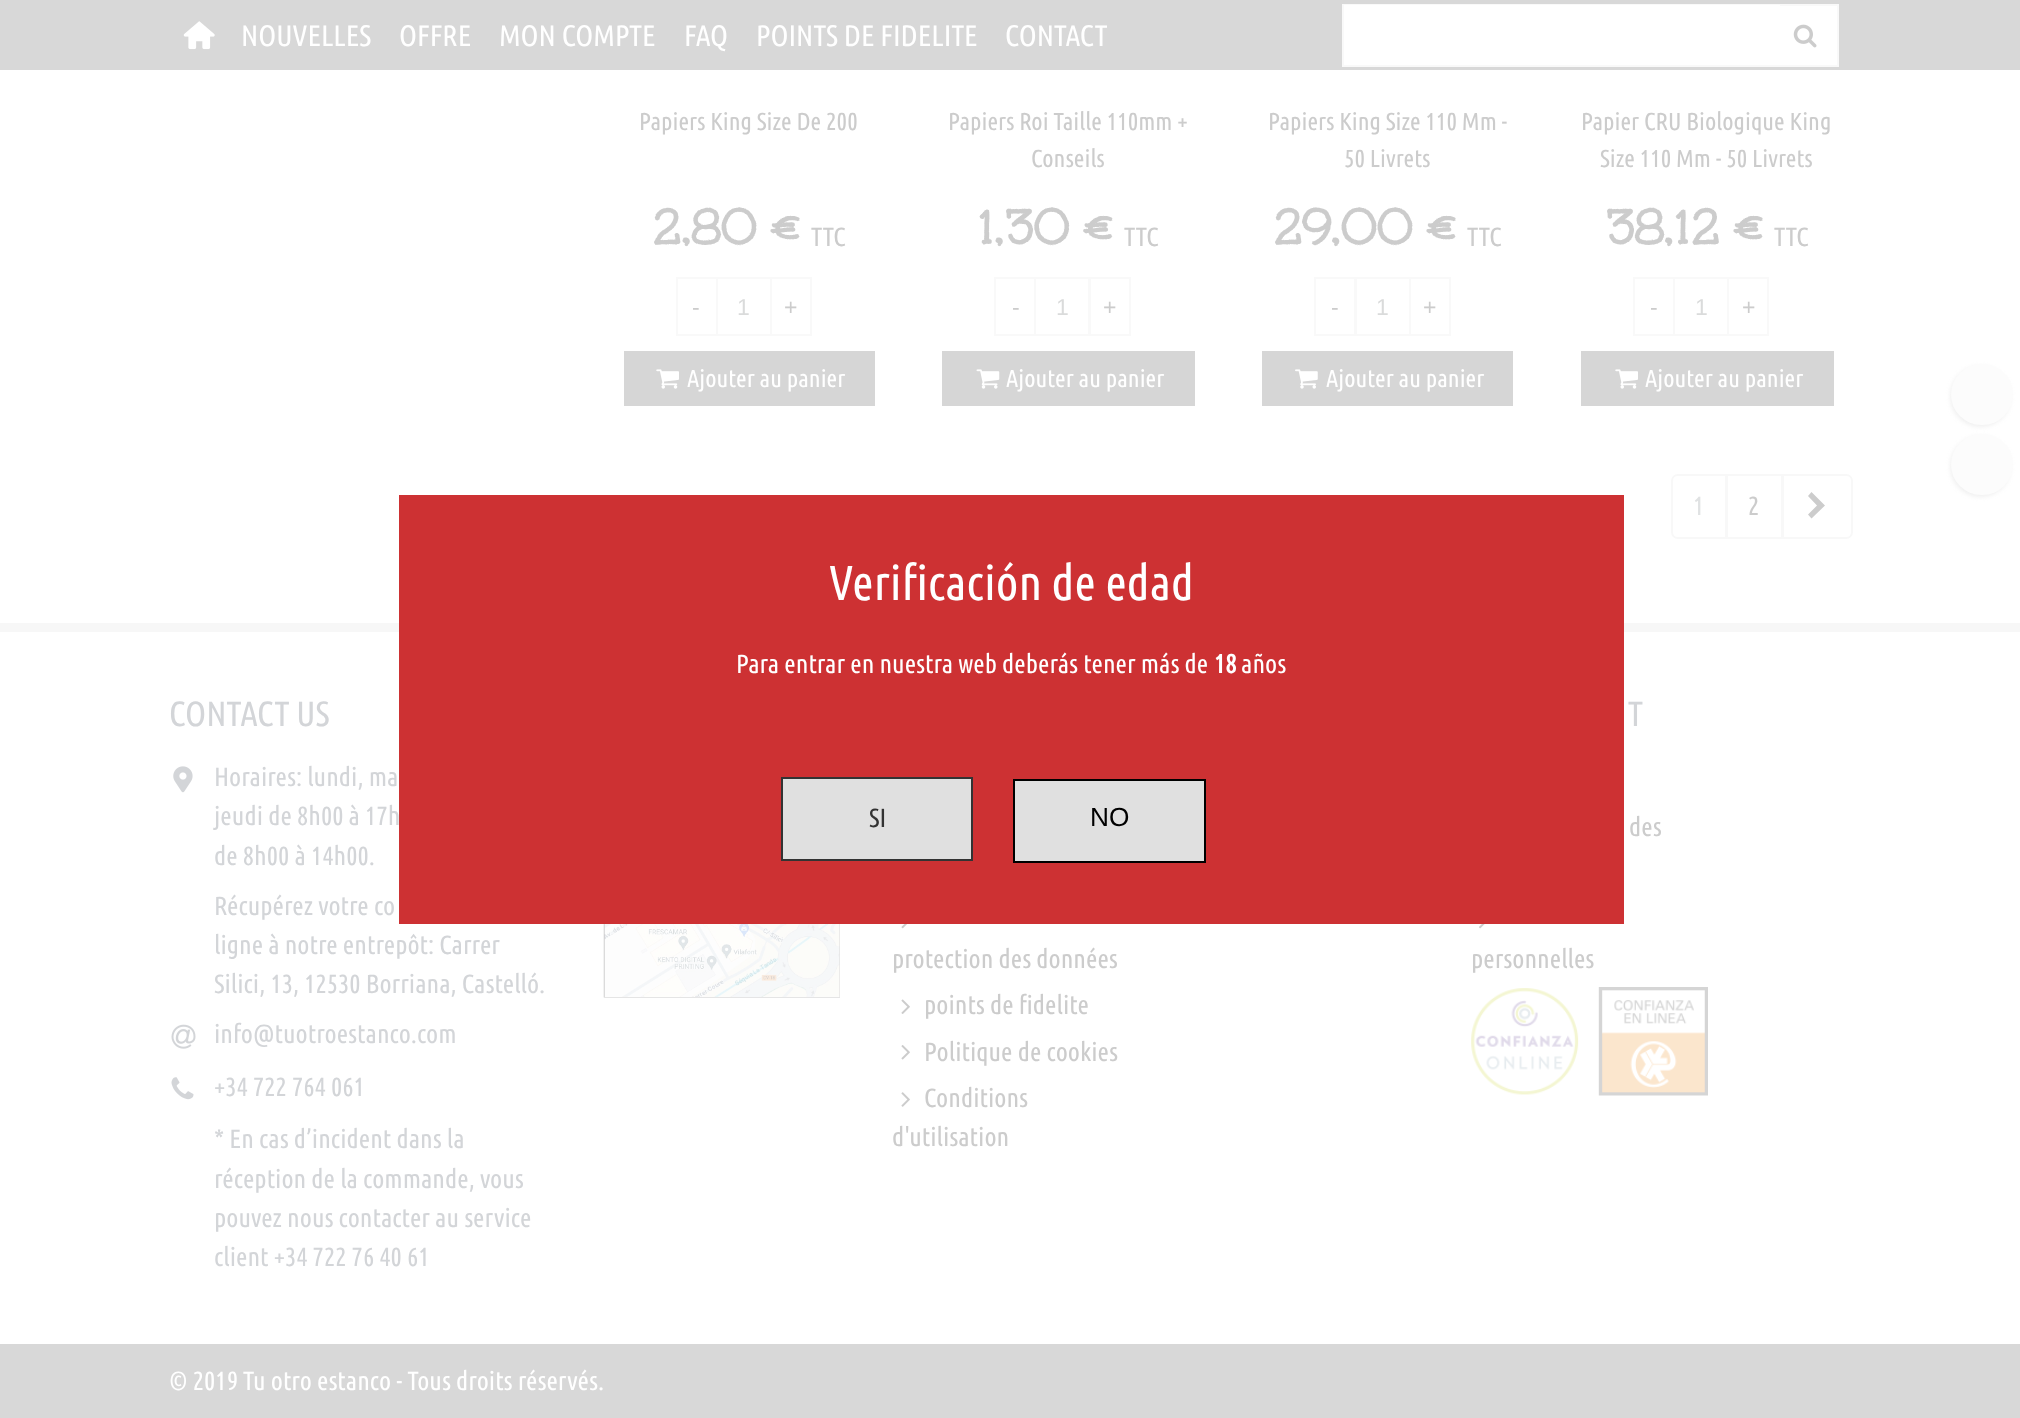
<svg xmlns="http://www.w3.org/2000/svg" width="2020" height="1418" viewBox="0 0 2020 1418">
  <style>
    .t1 { font: 29.75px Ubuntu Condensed; fill: #fff; }
    .t2 { font: 24.5px Ubuntu Condensed; fill: #ccc; }
    .t3 { font: bold 52.5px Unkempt; fill: #ccc; }
    .t4 { font: 26.25px Ubuntu Condensed; fill: #ccc; }
    .t5 { font: 23px Liberation Sans; fill: #ccc; }
    .t6 { font: 23px Liberation Sans; fill: #dadbdb; }
    .t7 { font: 24.5px Ubuntu Condensed; fill: #fff; }
    .t8 { font: 26.25px Ubuntu Condensed; fill: #e0e2e3; }
    .t9 { font: 35px Ubuntu Condensed; fill: #d3d5d8; }
    .t10 { font: 26.25px Ubuntu Condensed; fill: #d3d5d8; }
    .t11 { font: 26.25px Ubuntu Condensed; fill: #fff; }
    .t12 { font: 49px Ubuntu Condensed; fill: #fff; }
    .t13 { font: bold 26.25px Ubuntu Condensed; fill: #fff; }
    .t14 { font: 26.25px Ubuntu Condensed; fill: #333; }
    .t15 { font: 26.25px Liberation Sans; fill: #000; }
  </style>
  <rect width="100%" height="100%" fill="#fff"/>
  <rect x="0" y="0" width="2020" height="70" fill="#d8d8d8"/>
  <image x="183" y="21" width="32" height="29" href="images/1.png"/>
  <text x="241" y="46" class="t1">NOUVELLES</text>
  <text x="399" y="46" class="t1">OFFRE</text>
  <text x="499" y="46" class="t1">MON COMPTE</text>
  <text x="684" y="46" class="t1">FAQ</text>
  <text x="756" y="46" class="t1">POINTS DE FIDELITE</text>
  <text x="1005" y="46" class="t1">CONTACT</text>
  <rect x="1780" y="6" width="57" height="59" fill="#fff"/>
  <rect x="1343" y="5" width="495" height="61" fill="none" stroke="#f9f9f9" stroke-width="2"/>
  <rect x="1344" y="5" width="436" height="60" fill="#fff"/>
  <image x="1793" y="24" width="24" height="24" href="images/2.png"/>
  <rect x="1950" y="366" width="61" height="61" rx="30.5" fill="#cccccc4d" filter="blur(2px)"/>
  <rect x="1951" y="364" width="62" height="61" rx="30.5" fill="#fcfcfc"/>
  <rect x="1950" y="436" width="61" height="61" rx="30.5" fill="#cccccc4d" filter="blur(2px)"/>
  <rect x="1951" y="434" width="62" height="61" rx="30.5" fill="#fcfcfc"/>
  <text x="639" y="130" class="t2">Papiers King Size De 200</text>
  <text x="652" y="246" class="t3">2,80 €</text>
  <text x="811" y="246" class="t4">TTC</text>
  <rect x="677" y="278" width="40" height="57" fill="none" stroke="#f9f9f9" stroke-width="2"/>
  <text x="692" y="315" class="t5">-</text>
  <rect x="717" y="278" width="54" height="57" fill="none" stroke="#f9f9f9" stroke-width="2"/>
  <text x="737" y="315" class="t6">1</text>
  <rect x="771" y="278" width="40" height="57" fill="none" stroke="#f9f9f9" stroke-width="2"/>
  <text x="784" y="315" class="t5">+</text>
  <rect x="624" y="351" width="251" height="55" fill="#d6d6d6"/>
  <image x="656" y="369" width="23" height="20" href="images/3.png"/>
  <text x="687" y="387" class="t7">Ajouter au panier</text>
  <text x="948" y="130" class="t2">Papiers Roi Taille 110mm +</text>
  <text x="1031" y="167" class="t2">Conseils</text>
  <text x="977" y="246" class="t3">1,30 €</text>
  <text x="1124" y="246" class="t4">TTC</text>
  <rect x="995" y="278" width="40" height="57" fill="none" stroke="#f9f9f9" stroke-width="2"/>
  <text x="1012" y="315" class="t5">-</text>
  <rect x="1035" y="278" width="54" height="57" fill="none" stroke="#f9f9f9" stroke-width="2"/>
  <text x="1056" y="315" class="t6">1</text>
  <rect x="1090" y="278" width="40" height="57" fill="none" stroke="#f9f9f9" stroke-width="2"/>
  <text x="1103" y="315" class="t5">+</text>
  <rect x="942" y="351" width="253" height="55" fill="#d6d6d6"/>
  <image x="976" y="369" width="24" height="20" href="images/4.png"/>
  <text x="1006" y="387" class="t7">Ajouter au panier</text>
  <text x="1268" y="130" class="t2">Papiers King Size 110 Mm -</text>
  <text x="1344" y="167" class="t2">50 Livrets</text>
  <text x="1273" y="246" class="t3">29,00 €</text>
  <text x="1467" y="246" class="t4">TTC</text>
  <rect x="1315" y="278" width="40" height="57" fill="none" stroke="#f9f9f9" stroke-width="2"/>
  <text x="1331" y="315" class="t5">-</text>
  <rect x="1356" y="278" width="54" height="57" fill="none" stroke="#f9f9f9" stroke-width="2"/>
  <text x="1376" y="315" class="t6">1</text>
  <rect x="1410" y="278" width="40" height="57" fill="none" stroke="#f9f9f9" stroke-width="2"/>
  <text x="1423" y="315" class="t5">+</text>
  <rect x="1262" y="351" width="251" height="55" fill="#d6d6d6"/>
  <image x="1295" y="369" width="23" height="20" href="images/5.png"/>
  <text x="1326" y="387" class="t7">Ajouter au panier</text>
  <text x="1581" y="130" class="t2">Papier CRU Biologique King</text>
  <text x="1600" y="167" class="t2">Size 110 Mm - 50 Livrets</text>
  <text x="1605" y="246" class="t3">38,12 €</text>
  <text x="1774" y="246" class="t4">TTC</text>
  <rect x="1634" y="278" width="40" height="57" fill="none" stroke="#f9f9f9" stroke-width="2"/>
  <text x="1650" y="315" class="t5">-</text>
  <rect x="1674" y="278" width="54" height="57" fill="none" stroke="#f9f9f9" stroke-width="2"/>
  <text x="1695" y="315" class="t6">1</text>
  <rect x="1728" y="278" width="40" height="57" fill="none" stroke="#f9f9f9" stroke-width="2"/>
  <text x="1742" y="315" class="t5">+</text>
  <rect x="1581" y="351" width="253" height="55" fill="#d6d6d6"/>
  <image x="1615" y="369" width="23" height="20" href="images/3.png"/>
  <text x="1645" y="387" class="t7">Ajouter au panier</text>
  <rect x="1727" y="475" width="55" height="63" fill="none" stroke="#f8f8f8" stroke-width="2"/>
  <path d="M1678 475H1726V538H1678C1674.5 538 1672 535.5 1672 532V481C1672 477.5 1674.5 475 1678 475Z" fill="#fff" stroke="#f8f8f8" stroke-width="2"/>
  <text x="1693" y="515" class="t8">1</text>
  <text x="1748" y="515" class="t4">2</text>
  <path d="M1783 475H1846C1849.5 475 1852 477.5 1852 481V532C1852 535.5 1849.5 538 1846 538H1783Z" fill="#fff" stroke="#f8f8f8" stroke-width="2"/>
  <path d="M1808 514.5L1817 505.5L1808 496L1811.5 492L1825 505.5L1811.5 518.5Z" fill="#ccc"/>
  <rect x="0" y="623" width="2020" height="9" fill="#f7f7f7"/>
  <text x="169" y="726" class="t9">CONTACT US</text>
  <image x="173" y="766" width="20" height="27" href="images/6.png"/>
  <text x="214" y="786" class="t10">Horaires: lundi, ma</text>
  <text x="214" y="825" class="t10">jeudi de 8h00 à 17h</text>
  <text x="214" y="865" class="t10">de 8h00 à 14h00.</text>
  <text x="214" y="915" class="t10">Récupérez votre co</text>
  <text x="214" y="954" class="t10">ligne à notre entrepôt: Carrer</text>
  <text x="214" y="993" class="t10">Silici, 13, 12530 Borriana, Castelló.</text>
  <image x="171" y="1024" width="25" height="25" href="images/7.png"/>
  <text x="214" y="1043" class="t10">info@tuotroestanco.com</text>
  <image x="171" y="1077" width="23" height="23" href="images/8.png"/>
  <text x="214" y="1096" class="t10">+34 722 764 061</text>
  <text x="214" y="1148" class="t10">* En cas d’incident dans la</text>
  <text x="214" y="1188" class="t10">réception de la commande, vous</text>
  <text x="214" y="1227" class="t10">pouvez nous contacter au service</text>
  <text x="214" y="1266" class="t10">client +34 722 76 40 61</text>
  <image x="603" y="924" width="237" height="74" href="images/9.png"/>
  <image x="901" y="924" width="6" height="5" href="images/10.png"/>
  <text x="892" y="968" class="t4">protection des données</text>
  <image x="901" y="999" width="9" height="15" href="images/11.png"/>
  <text x="924" y="1014" class="t4">points de fidelite</text>
  <image x="901" y="1045" width="9" height="15" href="images/12.png"/>
  <text x="924" y="1061" class="t4">Politique de cookies</text>
  <image x="901" y="1092" width="9" height="15" href="images/13.png"/>
  <text x="924" y="1107" class="t4">Conditions</text>
  <text x="892" y="1146" class="t4">d'utilisation</text>
  <text x="1628" y="726" class="t9">T</text>
  <text x="1629" y="836" class="t4">des</text>
  <image x="1479" y="924" width="6" height="5" href="images/14.png"/>
  <text x="1471" y="968" class="t4">personnelles</text>
  <image x="1471" y="987" width="237" height="109" href="images/15.png"/>
  <rect x="0" y="1344" width="2020" height="74" fill="#d8d8d8"/>
  <text x="169" y="1390" class="t11">© 2019 Tu otro estanco - Tous droits réservés.</text>
  <rect x="399" y="495" width="1225" height="429" fill="#cd3133"/>
  <text x="829" y="600" class="t12">Verificación de edad</text>
  <text x="736" y="673" class="t11">Para entrar en nuestra web deberás tener más de</text>
  <text x="1214" y="673" class="t13">18</text>
  <text x="1241" y="673" class="t11">años</text>
  <rect x="782" y="778" width="190" height="82" fill="#e0e0e0" stroke="#333" stroke-width="2"/>
  <text x="869" y="827" class="t14">SI</text>
  <rect x="1014" y="780" width="191" height="82" fill="#e0e0e0" stroke="#000" stroke-width="2"/>
  <text x="1090" y="826" class="t15">NO</text>
</svg>
